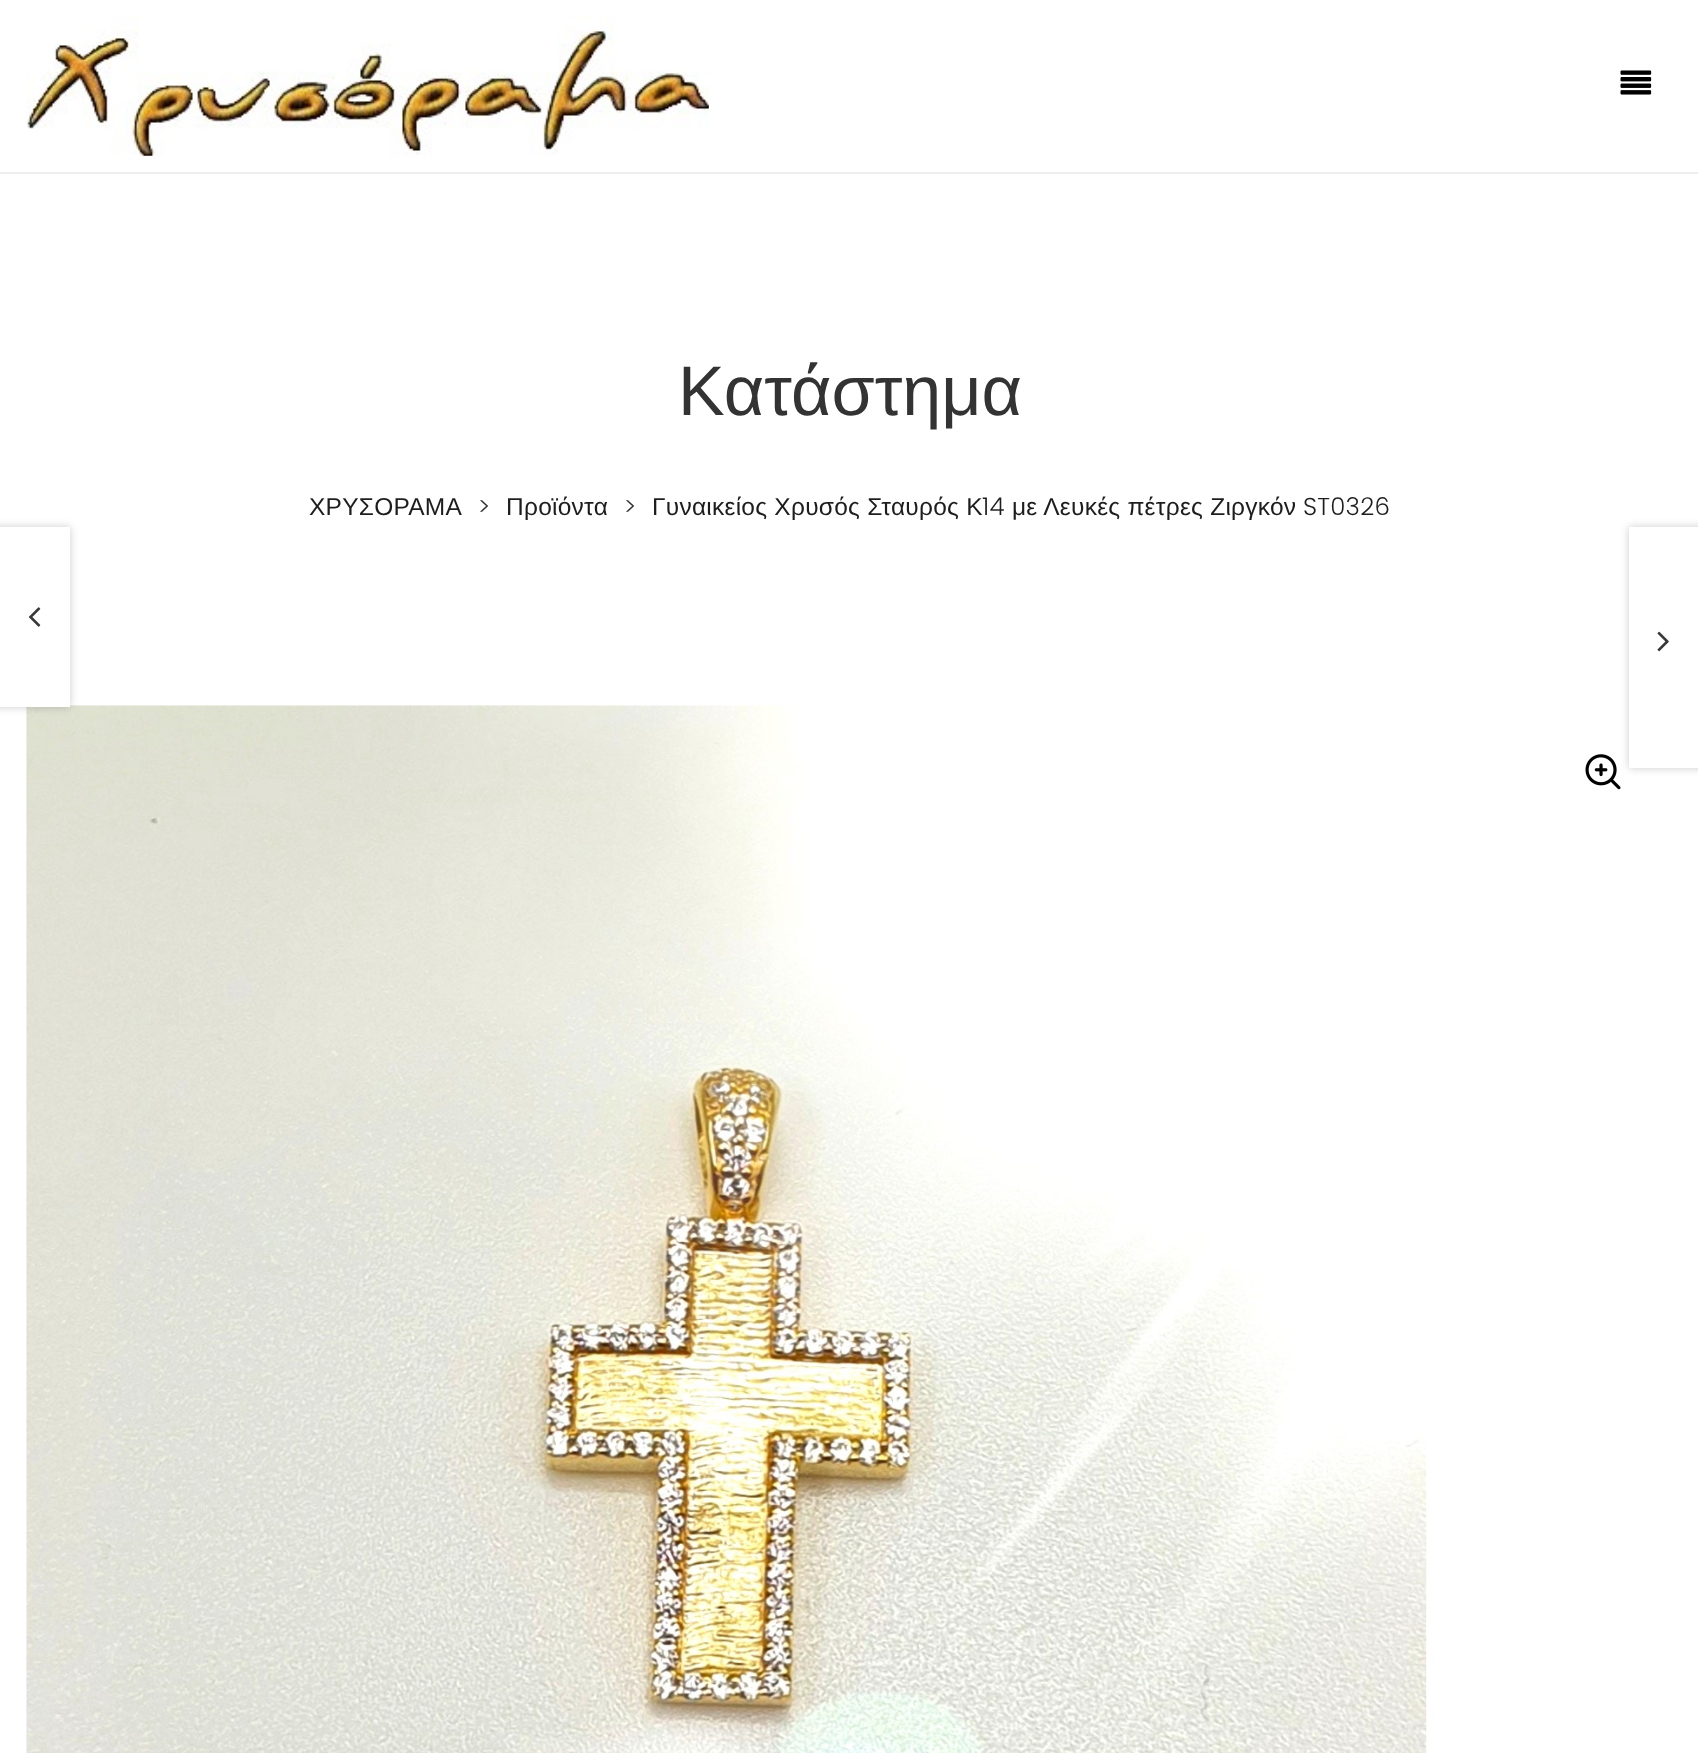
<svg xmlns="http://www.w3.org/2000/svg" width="1698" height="1753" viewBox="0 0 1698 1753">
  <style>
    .t1 { font: 70px Liberation Sans; fill: #333; }
    .t2 { font: 24.5px Liberation Sans; letter-spacing: 0.25px; fill: #1d1d1d; }
    .t3 { font: 300 24.5px Poppins; letter-spacing: 0.25px; fill: #333; }
    .t4 { font: 300 24.5px Poppins; letter-spacing: 0.25px; fill: #1d1d1d; }
  </style>
  <rect width="100%" height="100%" fill="#fff"/>
  <rect x="0" y="172" width="1698" height="2" fill="#eee"/>
  <image x="26" y="16" width="683" height="140" href="images/1.png"/>
  <image x="1620" y="70" width="32" height="25" href="images/2.png"/>
  <text x="678" y="415" class="t1">Κατάστημα</text>
  <text x="309" y="515" class="t2">ΧΡΥΣΟΡΑΜΑ</text>
  <text x="478" y="515" class="t3">&gt;</text>
  <text x="506" y="515" class="t2">Προϊόντα</text>
  <text x="624" y="515" class="t3">&gt;</text>
  <text x="652" y="515" class="t2">Γυναικείος Χρυσός Σταυρός Κ</text>
  <text x="982" y="515" class="t4">14</text>
  <text x="1012" y="515" class="t2">με Λευκές πέτρες Ζιργκόν</text>
  <text x="1303" y="515" class="t4">ST0326</text>
  <image x="26" y="705" width="1401" height="1048" href="images/3.png"/>
  <image x="1585" y="754" width="36" height="36" href="images/4.png"/>
  <rect x="-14" y="527" width="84" height="180" fill="#00000033" filter="blur(4.5px)"/>
  <rect x="0" y="527" width="70" height="180" fill="#fff"/>
  <image x="29" y="607" width="12" height="20" href="images/5.png"/>
  <rect x="1629" y="527" width="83" height="241" fill="#00000033" filter="blur(4.5px)"/>
  <rect x="1629" y="527" width="69" height="241" fill="#fff"/>
  <image x="1657" y="631" width="12" height="21" href="images/6.png"/>
</svg>
